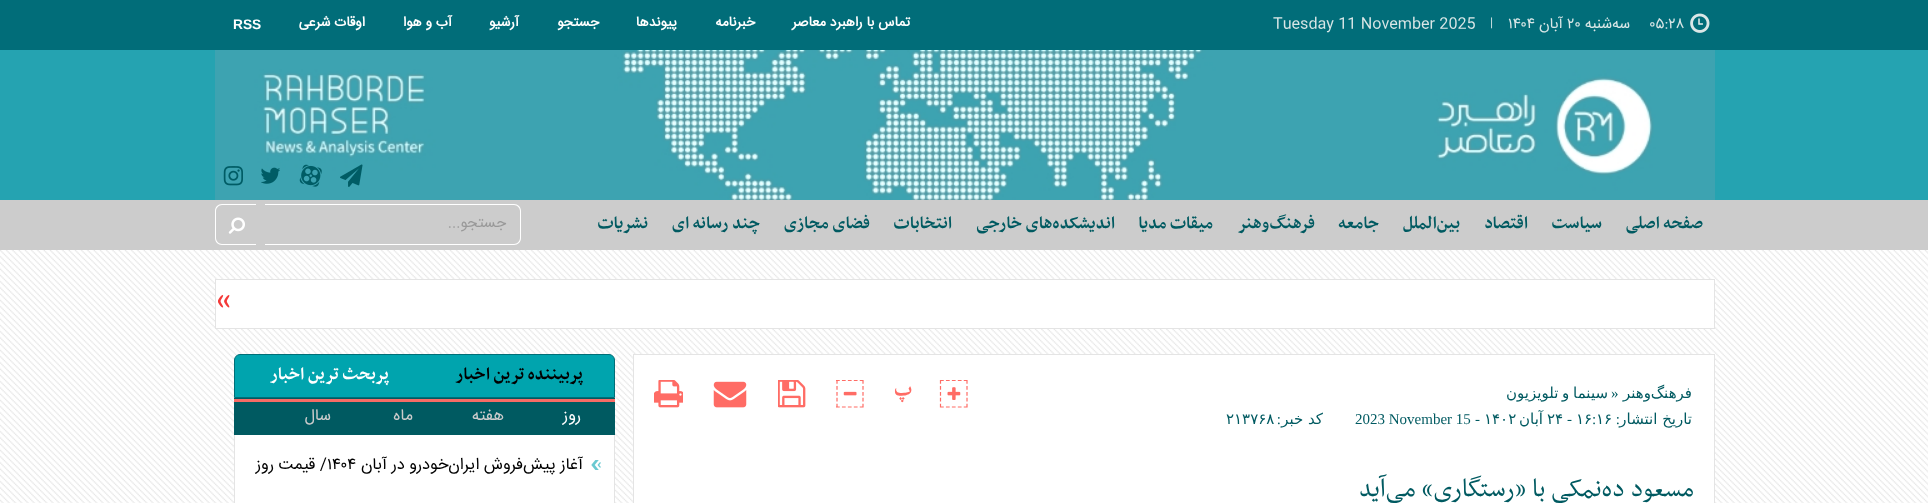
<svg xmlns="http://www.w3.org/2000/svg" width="1928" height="503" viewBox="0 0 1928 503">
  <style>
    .t1 { font: 15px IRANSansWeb; fill: #dae7e7; }
    .t2 { font: 15px IRANSansWeb; direction: rtl; fill: #dae7e7; }
    .t3 { font: 12px IRANSansWeb; fill: #dae7e7; }
    .t4 { font: bold 13.75px IRANSansWeb; direction: rtl; fill: #fff; }
    .t5 { font: bold 13.75px Liberation Sans; fill: #fff; }
    .t6 { font: bold 20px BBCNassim; direction: rtl; fill: #005a61; }
    .t7 { font: 15px IRANSansWeb; direction: rtl; fill: #999; }
    .t8 { font: 15px DejaVu Sans; direction: rtl; fill: #005a61; }
    .t9 { font: 15px Liberation Serif; fill: #005a61; }
    .t10 { font: 15px Liberation Serif; direction: rtl; fill: #005a61; }
    .t11 { font: 15px DejaVu Sans; fill: #005a61; }
    .t12 { font: bold 22px BBCNassim; direction: rtl; fill: #ff6c65; }
    .t13 { font: 30px BBCNassim; direction: rtl; fill: #005a61; }
    .t14 { font: bold 20px BBCNassim; direction: rtl; fill: #000; }
    .t15 { font: bold 20px BBCNassim; direction: rtl; fill: #fff; }
    .t16 { font: 16.25px IRANSansWeb; direction: rtl; fill: #fff; }
    .t17 { font: 16.25px IRANSansWeb; direction: rtl; fill: #ccc; }
    .t18 { font: 16.25px IRANSansWeb; direction: rtl; fill: #000; }
    .t19 { font: 16.25px IRANSansWeb; fill: #000; }
  </style>
  <rect width="100%" height="100%" fill="#fff"/>
  <image x="0" y="250" width="1928" height="253" href="images/1.png"/>
  <rect x="0" y="0" width="1928" height="50" fill="#016d79"/>
  <rect x="0" y="50" width="1928" height="150" fill="#25a3b1"/>
  <rect x="0" y="200" width="1928" height="50" fill="#ccc"/>
  <image x="1690" y="13" width="20" height="20" href="images/2.png"/>
  <text x="1649" y="28" class="t1">۰۵:۲۸</text>
  <text x="1630" y="28" class="t2">سه‌شنبه</text>
  <text x="1567" y="28" class="t1">۲۰</text>
  <text x="1563" y="28" class="t2">آبان</text>
  <text x="1508" y="28" class="t1">۱۴۰۴</text>
  <text x="1490" y="26" class="t3">|</text>
  <text x="1273" y="28" class="t1">Tuesday 11 November 2025</text>
  <text x="910" y="26" class="t4">تماس با راهبرد معاصر</text>
  <text x="755" y="26" class="t4">خبرنامه</text>
  <text x="677" y="26" class="t4">پیوندها</text>
  <text x="599" y="26" class="t4">جستجو</text>
  <text x="519" y="26" class="t4">آرشیو</text>
  <text x="452" y="26" class="t4">آب و هوا</text>
  <text x="365" y="26" class="t4">اوقات شرعی</text>
  <text x="233" y="29" class="t5">RSS</text>
  <image x="215" y="50" width="1500" height="150" href="images/3.png"/>
  <image x="340" y="164" width="23" height="23" href="images/4.png"/>
  <image x="299" y="164" width="23" height="23" href="images/5.png"/>
  <image x="261" y="167" width="19" height="17" href="images/6.png"/>
  <image x="223" y="166" width="20" height="20" href="images/7.png"/>
  <text x="1703" y="228" class="t6">صفحه اصلی</text>
  <text x="1602" y="228" class="t6">سیاست</text>
  <text x="1528" y="228" class="t6">اقتصاد</text>
  <text x="1460" y="228" class="t6">بین‌الملل</text>
  <text x="1379" y="228" class="t6">جامعه</text>
  <text x="1315" y="228" class="t6">فرهنگ‌وهنر</text>
  <text x="1213" y="228" class="t6">میقات مدیا</text>
  <text x="1115" y="228" class="t6">اندیشکده‌های خارجی</text>
  <text x="952" y="228" class="t6">انتخابات</text>
  <text x="870" y="228" class="t6">فضای مجازی</text>
  <text x="760" y="228" class="t6">چند رسانه ای</text>
  <text x="648" y="228" class="t6">نشریات</text>
  <path d="M265 204H514C518 204 521 207 521 211V238C521 242 518 245 514 245H265ZM265 205H514C517 205 520 208 520 211V238C520 241 517 244 514 244H265Z" fill="#fff" fill-rule="evenodd"/>
  <text x="506" y="227" class="t7">جستجو...</text>
  <path d="M222 204H256V245H222C218 245 215 242 215 238V211C215 207 218 204 222 204ZM222 205H256V244H222C219 244 216 241 216 238V211C216 208 219 205 222 205Z" fill="#fff" fill-rule="evenodd"/>
  <image x="228" y="217" width="17" height="17" href="images/8.png"/>
  <rect x="215.5" y="279.5" width="1499" height="49" fill="#fff" stroke="#e4e4e4"/>
  <image x="218" y="295" width="12" height="13" href="images/9.png"/>
  <rect x="633.5" y="354.5" width="1081" height="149" fill="#fff" stroke="#e4e4e4"/>
  <text x="1692" y="398" class="t8">فرهنگ</text>
  <text x="1651" y="398" class="t8">وهنر</text>
  <text x="1611" y="398" class="t9">»</text>
  <text x="1608" y="398" word-spacing="-1" class="t8">سینما و تلویزیون</text>
  <text x="1692" y="424" class="t8">تاریخ انتشار</text>
  <text x="1620" y="424" class="t10">:</text>
  <text x="1596" y="424" class="t11">۱۶</text>
  <text x="1592" y="424" class="t9">:</text>
  <text x="1576" y="424" class="t11">۱۶</text>
  <text x="1567" y="424" class="t9">-</text>
  <text x="1547" y="424" class="t11">۲۴</text>
  <text x="1543" y="424" class="t8">آبان</text>
  <text x="1484" y="424" class="t11">۱۴۰۲</text>
  <text x="1475" y="424" class="t9">-</text>
  <text x="1355" y="424" class="t9">2023 November 15</text>
  <text x="1281" y="424" class="t10">:</text>
  <text x="1323" y="424" class="t8">کد خبر</text>
  <text x="1226" y="424" class="t11">۲۱۳۷۶۸</text>
  <path d="M940 380.5H967.5M967 380V407.5M940 407H967.5M940.5 380V407.5" fill="none" stroke="#ff6c65" stroke-width="1.2" stroke-dasharray="3.75 2.19"/>
  <image x="947" y="387" width="14" height="13" href="images/10.png"/>
  <text x="912" y="395" class="t12">پ</text>
  <path d="M836 380.5H864M863 380V407.5M836 407H864M837 380V407.5" fill="none" stroke="#ff6c65" stroke-width="1.2" stroke-dasharray="3.75 2.19"/>
  <image x="843" y="391" width="14" height="5" href="images/11.png"/>
  <image x="778" y="380" width="28" height="28" href="images/12.png"/>
  <image x="713" y="381" width="34" height="27" href="images/13.png"/>
  <image x="654" y="380" width="29" height="28" href="images/14.png"/>
  <text x="1694" y="496" class="t13">مسعود ده‌نمکی با «رستگاری» می‌آید</text>
  <path d="M240 354.5H609C612 354.5 614.5 357 614.5 360V397.5H234.5V360C234.5 357 237 354.5 240 354.5Z" fill="#00a4ae" stroke="#006e77"/>
  <text x="583" y="379" class="t14">پربیننده ترین اخبار</text>
  <text x="389" y="379" class="t15">پربحث ترین اخبار</text>
  <rect x="234" y="398" width="381" height="37" fill="#005a61"/>
  <rect x="234" y="399" width="381" height="3" fill="#f76b65"/>
  <text x="581" y="420" class="t16">روز</text>
  <text x="504" y="420" class="t17">هفته</text>
  <text x="413" y="420" class="t17">ماه</text>
  <text x="331" y="420" class="t17">سال</text>
  <rect x="235" y="435" width="379" height="68" fill="#fff"/>
  <rect x="614" y="435" width="1" height="68" fill="#e4e4e4"/>
  <rect x="234" y="435" width="1" height="68" fill="#e4e4e4"/>
  <image x="591" y="460" width="10" height="10" href="images/15.png"/>
  <text x="583" y="469" class="t18">آغاز پیش‌فروش ایران‌خودرو در آبان</text>
  <text x="327" y="469" class="t19">۱۴۰۴</text>
  <text x="327" y="469" class="t18">/ قیمت روز</text>
</svg>
